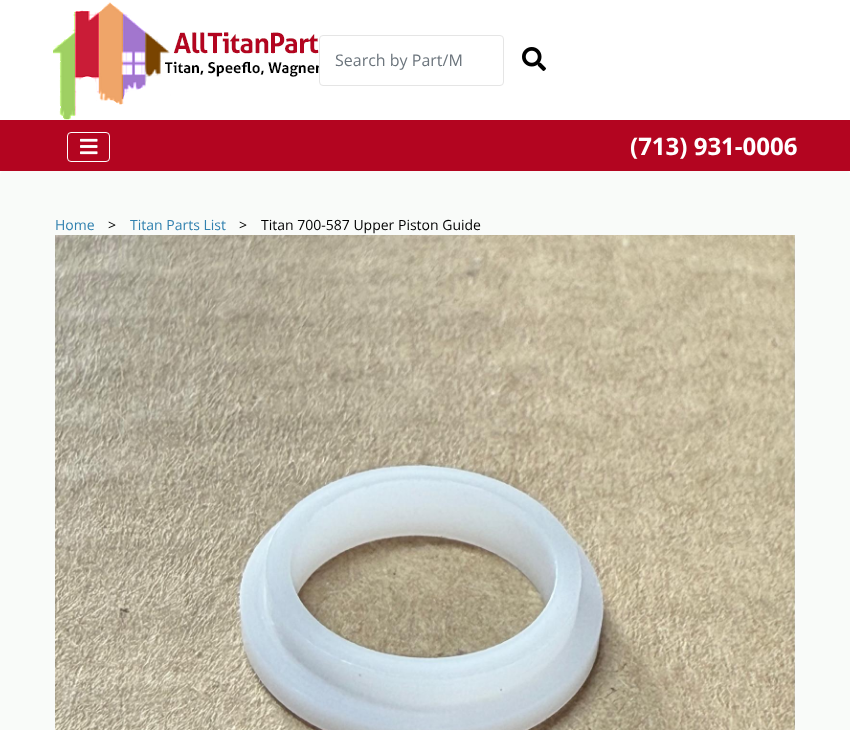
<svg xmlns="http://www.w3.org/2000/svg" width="850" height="730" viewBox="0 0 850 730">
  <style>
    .t1 { font: 16px Open Sans; fill: #6c757d; }
    .t2 { font: bold 24px Open Sans; fill: #fff; }
    .t3 { font: 14px Open Sans; fill: #3181af; }
    .t4 { font: 14px Open Sans; fill: #000; }
  </style>
  <rect width="100%" height="100%" fill="#fff"/>
  <image x="53" y="2" width="355" height="118" href="images/1.png"/>
  <rect x="319.5" y="35.5" width="184" height="50" rx="3.5" fill="#fff" stroke="#e5e5e5"/>
  <text x="335" y="66" class="t1">Search by Part/M</text>
  <image x="522" y="47" width="24" height="24" href="images/2.png"/>
  <rect x="0" y="120" width="850" height="51" fill="#b30520"/>
  <rect x="67.5" y="132.5" width="42" height="29" rx="3.5" fill="none" stroke="#fff"/>
  <image x="80" y="138" width="18" height="17" href="images/3.png"/>
  <text x="630" y="155" class="t2">(713) 931-0006</text>
  <rect x="0" y="171" width="850" height="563" rx="4" fill="#f9fbf9"/>
  <text x="55" y="230" class="t3">Home</text>
  <text x="108" y="230" class="t4">&gt;</text>
  <text x="130" y="230" class="t3">Titan Parts List</text>
  <text x="239" y="230" class="t4">&gt;</text>
  <text x="261" y="230" class="t4">Titan 700-587 Upper Piston Guide</text>
  <image x="55" y="235" width="740" height="495" href="images/4.png"/>
</svg>
